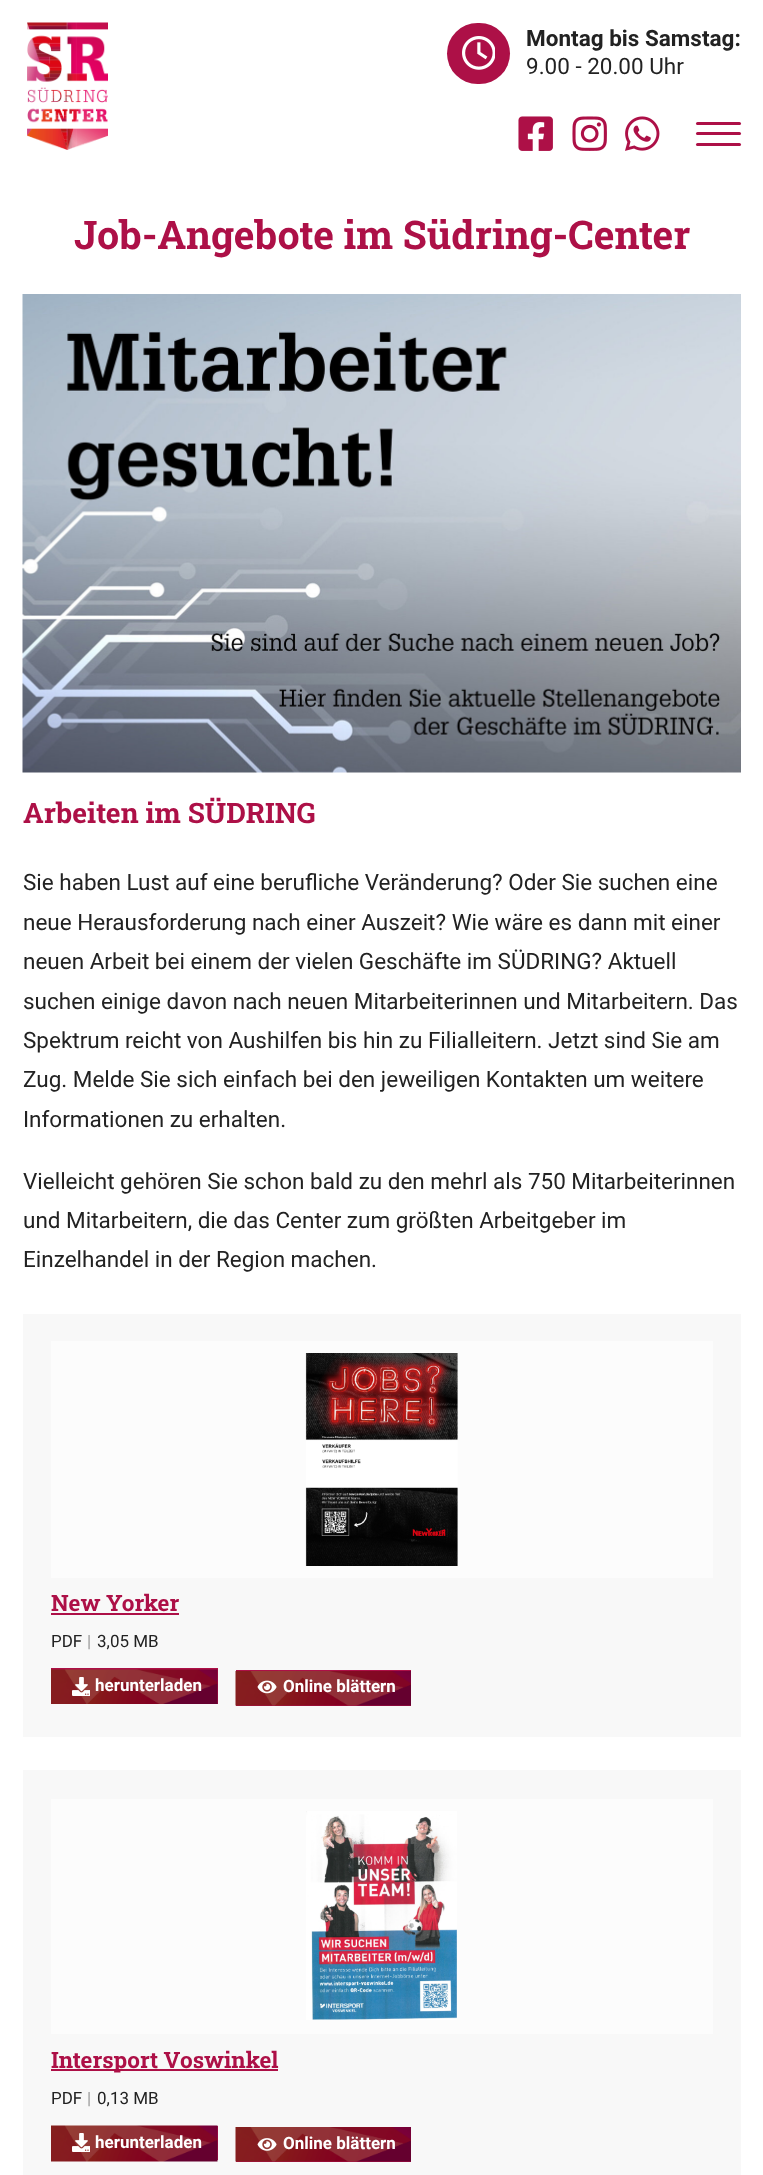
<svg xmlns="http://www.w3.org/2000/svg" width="763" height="2175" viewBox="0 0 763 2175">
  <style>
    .t1 { font: bold 22.5px Roboto; fill: #222; }
    .t2 { font: 22.5px Roboto; fill: #222; }
    .t3 { font: bold 39.4px Roboto Slab; fill: #ad1047; }
    .t4 { font: bold 28.1px Roboto Slab; fill: #ad1047; }
    .t5 { font: bold 22.5px Roboto Slab; fill: #ad1047; }
    .t6 { font: 17px Roboto; fill: #222; }
    .t7 { font: 17px Roboto; fill: #999; }
    .t8 { font: bold 17px Roboto; fill: #fff; }
  </style>
  <rect width="100%" height="100%" fill="#fff"/>
  <image x="27" y="22" width="81" height="128" href="images/1.png"/>
  <rect x="447" y="23" width="63" height="61" rx="30.5" fill="#ad1047"/>
  <image x="462" y="36" width="33" height="34" href="images/2.png"/>
  <text x="526" y="46" class="t1">Montag bis Samstag:</text>
  <text x="526" y="74" class="t2">9.00 - 20.00 Uhr</text>
  <image x="518" y="116" width="35" height="35" href="images/3.png"/>
  <image x="572" y="116" width="35" height="35" href="images/4.png"/>
  <image x="625" y="116" width="35" height="35" href="images/5.png"/>
  <rect x="696" y="132" width="45" height="3" rx="1.5" fill="#ad1047"/>
  <rect x="696" y="122" width="45" height="3" rx="1.5" fill="#ad1047"/>
  <rect x="696" y="143" width="45" height="3" rx="1.5" fill="#ad1047"/>
  <text x="74" y="249" class="t3">Job-Angebote im Südring-Center</text>
  <image x="22" y="294" width="719" height="479" href="images/6.png"/>
  <text x="23" y="823" class="t4">Arbeiten im SÜDRING</text>
  <text x="23" y="890" class="t2">Sie haben Lust auf eine berufliche Veränderung? Oder Sie suchen eine</text>
  <text x="23" y="930" class="t2">neue Herausforderung nach einer Auszeit? Wie wäre es dann mit einer</text>
  <text x="23" y="969" class="t2">neuen Arbeit bei einem der vielen Geschäfte im SÜDRING? Aktuell</text>
  <text x="23" y="1009" class="t2">suchen einige davon nach neuen Mitarbeiterinnen und Mitarbeitern. Das</text>
  <text x="23" y="1048" class="t2">Spektrum reicht von Aushilfen bis hin zu Filialleitern. Jetzt sind Sie am</text>
  <text x="23" y="1087" class="t2">Zug. Melde Sie sich einfach bei den jeweiligen Kontakten um weitere</text>
  <text x="23" y="1127" class="t2">Informationen zu erhalten.</text>
  <text x="23" y="1189" class="t2">Vielleicht gehören Sie schon bald zu den mehrl als 750 Mitarbeiterinnen</text>
  <text x="23" y="1228" class="t2">und Mitarbeitern, die das Center zum größten Arbeitgeber im</text>
  <text x="23" y="1267" class="t2">Einzelhandel in der Region machen.</text>
  <rect x="23" y="1314" width="718" height="423" fill="#f8f8f8"/>
  <rect x="51" y="1341" width="662" height="237" fill="#ffffff80"/>
  <image x="305" y="1353" width="153" height="213" href="images/7.png"/>
  <text x="51" y="1611" class="t5">New Yorker</text>
  <rect x="51" y="1613" width="128" height="2" fill="#ad1047"/>
  <text x="51" y="1647" class="t6">PDF</text>
  <text x="87" y="1647" class="t7">|</text>
  <text x="97" y="1647" class="t6">3,05 MB</text>
  <rect x="51" y="1668" width="167" height="36" fill="#ad1047"/>
  <image x="51" y="1669" width="167" height="35" href="images/8.png"/>
  <image x="72" y="1677" width="18" height="19" href="images/9.png"/>
  <text x="95" y="1691" class="t8">herunterladen</text>
  <rect x="236" y="1670" width="175" height="36" fill="#ad1047"/>
  <image x="235" y="1671" width="176" height="35" href="images/10.png"/>
  <image x="257" y="1680" width="20" height="14" href="images/11.png"/>
  <text x="283" y="1692" class="t8">Online blättern</text>
  <rect x="23" y="1770" width="718" height="405" fill="#f8f8f8"/>
  <rect x="51" y="1799" width="662" height="235" fill="#ffffff80"/>
  <image x="306" y="1811" width="151" height="209" href="images/12.png"/>
  <rect x="51" y="2069" width="227" height="2" fill="#ad1047"/>
  <text x="51" y="2068" class="t5">Intersport Voswinkel</text>
  <text x="51" y="2104" class="t6">PDF</text>
  <text x="87" y="2104" class="t7">|</text>
  <text x="97" y="2104" class="t6">0,13 MB</text>
  <rect x="217" y="2126" width="1" height="34" fill="#ad1047"/>
  <image x="51" y="2125" width="167" height="37" href="images/13.png"/>
  <image x="72" y="2133" width="18" height="19" href="images/14.png"/>
  <text x="95" y="2148" class="t8">herunterladen</text>
  <rect x="236" y="2161" width="175" height="1" fill="#ad1047"/>
  <image x="235" y="2127" width="176" height="35" href="images/10.png"/>
  <image x="257" y="2138" width="20" height="13" href="images/15.png"/>
  <text x="283" y="2149" class="t8">Online blättern</text>
</svg>
